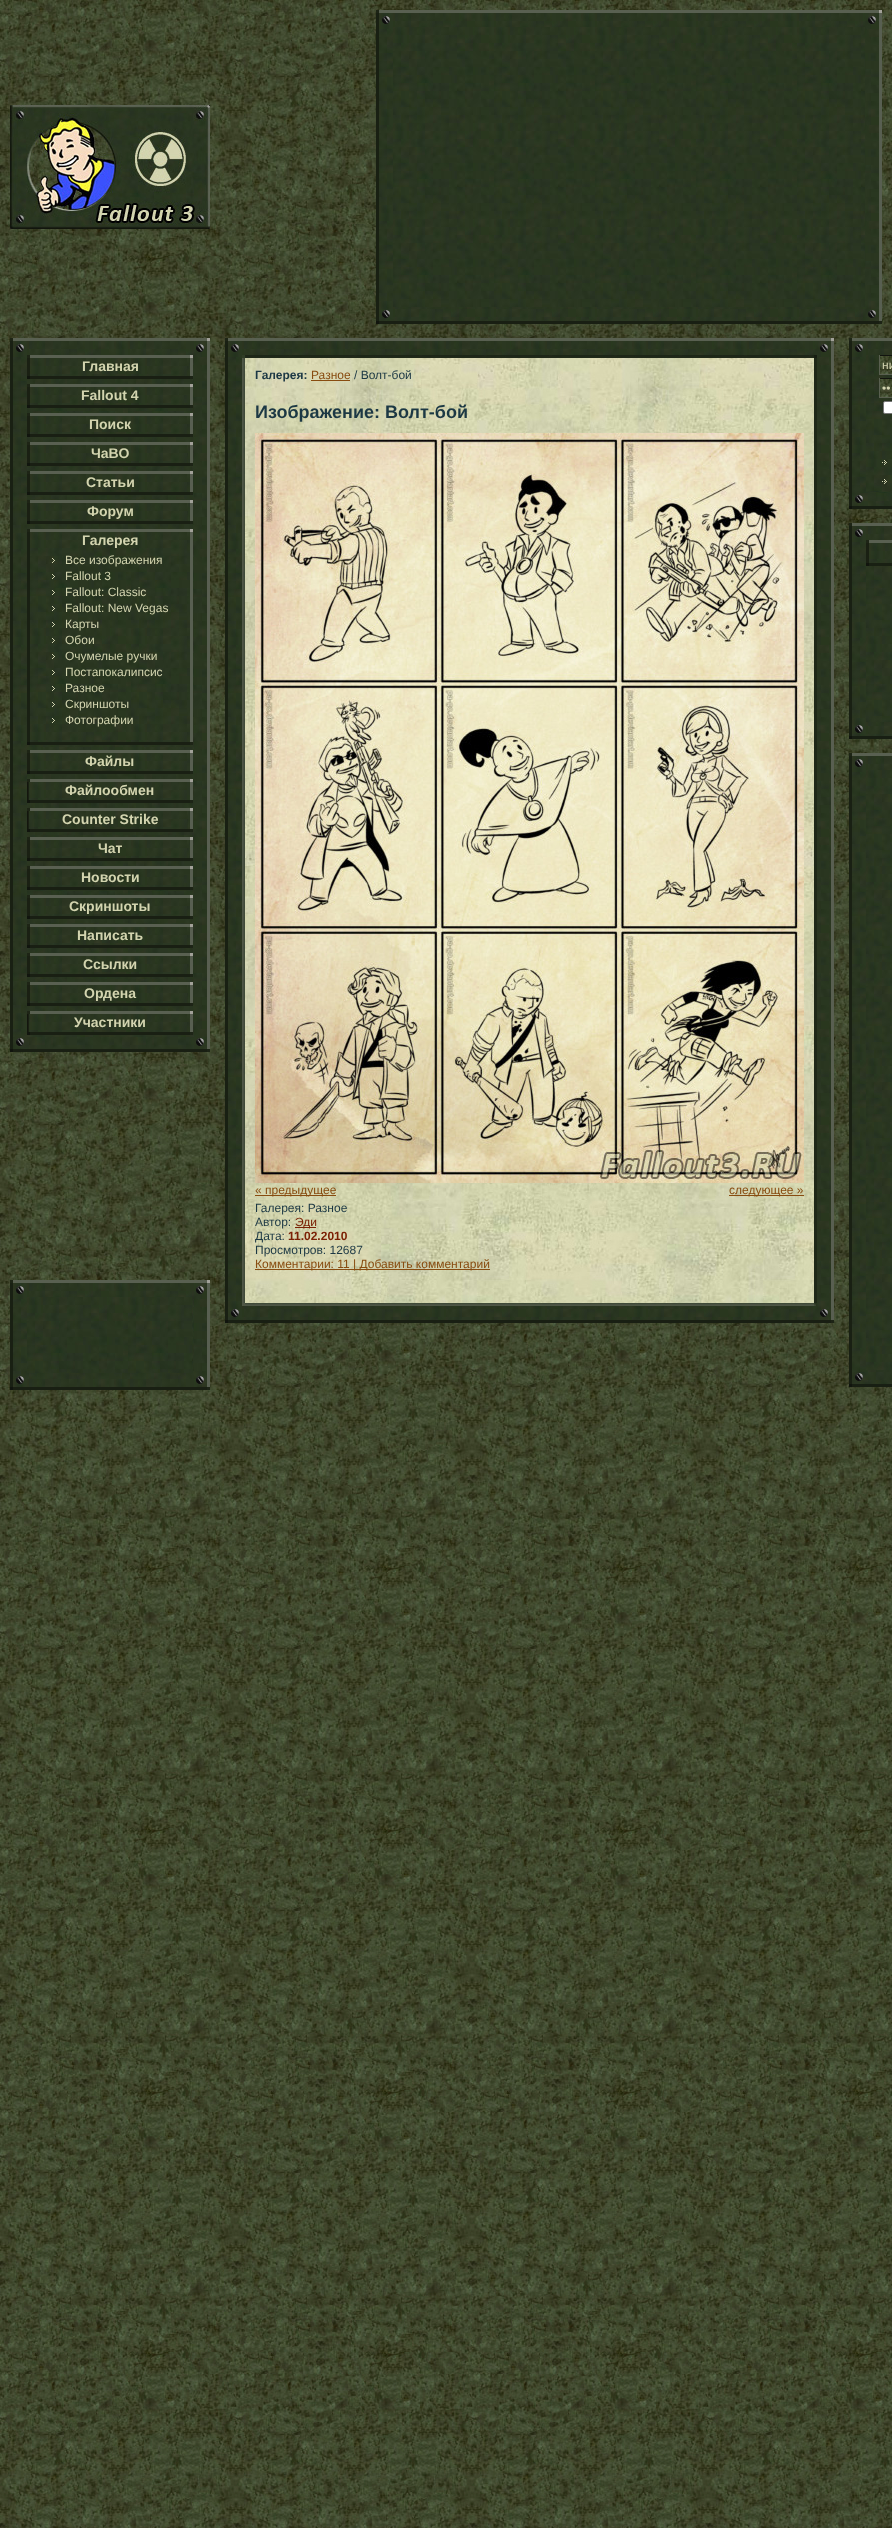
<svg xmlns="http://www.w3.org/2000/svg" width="892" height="2528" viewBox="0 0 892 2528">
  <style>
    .t1 { font: bold 14px Liberation Sans; fill: #d3d4af; }
    .t2 { font: 12px Liberation Sans; fill: #d3d4af; }
    .t3 { font: bold 12px Liberation Sans; fill: #1c3844; }
    .t4 { font: 12px Liberation Sans; fill: #884c10; }
    .t5 { font: 12px Liberation Sans; fill: #1c3844; }
    .t6 { font: bold 18px Liberation Sans; fill: #1c3844; }
    .t7 { font: 12px Liberation Sans; fill: #7b2105; }
    .t8 { font: bold 12px Liberation Sans; fill: #7b2105; }
  </style>
  <rect width="100%" height="100%" fill="#fff"/>
  <image x="0" y="0" width="892" height="2528" href="images/1.png"/>
  <image x="10" y="105" width="200" height="124" href="images/2.png"/>
  <rect x="376" y="10" width="3" height="3" fill="#1e2516"/>
  <rect x="379" y="10" width="500" height="3" fill="#596051"/>
  <rect x="879" y="10" width="3" height="3" fill="#a3a29a"/>
  <rect x="376" y="13" width="3" height="308" fill="#192013"/>
  <image x="379" y="13" width="500" height="308" href="images/3.png"/>
  <image x="382" y="16" width="8" height="8" href="images/4.png"/>
  <image x="868" y="16" width="8" height="8" href="images/5.png"/>
  <image x="393" y="27" width="472" height="280" href="images/6.png"/>
  <image x="382" y="310" width="8" height="8" href="images/7.png"/>
  <image x="868" y="310" width="8" height="8" href="images/8.png"/>
  <rect x="879" y="13" width="3" height="308" fill="#585f51"/>
  <rect x="376" y="321" width="3" height="3" fill="#11150e"/>
  <rect x="379" y="321" width="500" height="3" fill="#191f13"/>
  <rect x="879" y="321" width="3" height="3" fill="#1d2416"/>
  <rect x="10" y="338" width="3" height="3" fill="#1e2516"/>
  <rect x="13" y="338" width="194" height="3" fill="#596051"/>
  <rect x="207" y="338" width="3" height="3" fill="#a3a29a"/>
  <rect x="10" y="341" width="3" height="708" fill="#192013"/>
  <image x="13" y="341" width="194" height="708" href="images/9.png"/>
  <image x="16" y="344" width="8" height="8" href="images/4.png"/>
  <image x="196" y="344" width="8" height="8" href="images/10.png"/>
  <image x="27" y="358" width="166" height="674" href="images/11.png"/>
  <rect x="27" y="355" width="3" height="3" fill="#1e2516"/>
  <rect x="30" y="355" width="160" height="3" fill="#596051"/>
  <rect x="190" y="355" width="3" height="3" fill="#a3a29a"/>
  <rect x="27" y="358" width="3" height="18" fill="#1a2013"/>
  <image x="30" y="358" width="159" height="18" href="images/12.png"/>
  <text x="82" y="371" class="t1">Главная</text>
  <rect x="190" y="358" width="3" height="18" fill="#585f51"/>
  <rect x="27" y="376" width="3" height="3" fill="#11150e"/>
  <rect x="30" y="376" width="160" height="3" fill="#191f13"/>
  <rect x="190" y="376" width="3" height="3" fill="#1d2416"/>
  <rect x="27" y="384" width="3" height="3" fill="#1e2516"/>
  <rect x="30" y="384" width="160" height="3" fill="#596051"/>
  <rect x="190" y="384" width="3" height="3" fill="#a3a29a"/>
  <rect x="27" y="387" width="3" height="18" fill="#1a2013"/>
  <image x="30" y="387" width="154" height="18" href="images/13.png"/>
  <text x="81" y="400" class="t1">Fallout 4</text>
  <rect x="190" y="387" width="3" height="18" fill="#585f51"/>
  <rect x="27" y="405" width="3" height="3" fill="#11150e"/>
  <rect x="30" y="405" width="160" height="3" fill="#191f13"/>
  <rect x="190" y="405" width="3" height="3" fill="#1d2416"/>
  <rect x="27" y="413" width="3" height="3" fill="#1e2516"/>
  <rect x="30" y="413" width="160" height="3" fill="#596051"/>
  <rect x="190" y="413" width="3" height="3" fill="#a3a29a"/>
  <rect x="27" y="416" width="3" height="18" fill="#1a2013"/>
  <image x="30" y="416" width="160" height="18" href="images/14.png"/>
  <text x="89" y="429" class="t1">Поиск</text>
  <rect x="190" y="416" width="3" height="18" fill="#585f51"/>
  <rect x="27" y="434" width="3" height="3" fill="#11150e"/>
  <rect x="30" y="434" width="160" height="3" fill="#191f13"/>
  <rect x="190" y="434" width="3" height="3" fill="#1d2416"/>
  <rect x="27" y="442" width="3" height="3" fill="#1e2516"/>
  <rect x="30" y="442" width="160" height="3" fill="#596051"/>
  <rect x="190" y="442" width="3" height="3" fill="#a3a29a"/>
  <rect x="27" y="445" width="3" height="18" fill="#1a2013"/>
  <image x="30" y="445" width="158" height="18" href="images/15.png"/>
  <text x="91" y="458" class="t1">ЧаВО</text>
  <rect x="190" y="445" width="3" height="18" fill="#585f51"/>
  <rect x="27" y="463" width="3" height="3" fill="#11150e"/>
  <rect x="30" y="463" width="160" height="3" fill="#191f13"/>
  <rect x="190" y="463" width="3" height="3" fill="#1d2416"/>
  <rect x="27" y="471" width="3" height="3" fill="#1e2516"/>
  <rect x="30" y="471" width="160" height="3" fill="#596051"/>
  <rect x="190" y="471" width="3" height="3" fill="#a3a29a"/>
  <rect x="27" y="474" width="3" height="18" fill="#1a2013"/>
  <image x="30" y="474" width="160" height="18" href="images/14.png"/>
  <text x="86" y="487" class="t1">Статьи</text>
  <rect x="190" y="474" width="3" height="18" fill="#585f51"/>
  <rect x="27" y="492" width="3" height="3" fill="#11150e"/>
  <rect x="30" y="492" width="160" height="3" fill="#191f13"/>
  <rect x="190" y="492" width="3" height="3" fill="#1d2416"/>
  <rect x="27" y="500" width="3" height="3" fill="#1e2516"/>
  <rect x="30" y="500" width="160" height="3" fill="#596051"/>
  <rect x="190" y="500" width="3" height="3" fill="#a3a29a"/>
  <rect x="27" y="503" width="3" height="18" fill="#1a2013"/>
  <image x="30" y="503" width="158" height="18" href="images/15.png"/>
  <text x="87" y="516" class="t1">Форум</text>
  <rect x="190" y="503" width="3" height="18" fill="#585f51"/>
  <rect x="27" y="521" width="3" height="3" fill="#11150e"/>
  <rect x="30" y="521" width="160" height="3" fill="#191f13"/>
  <rect x="190" y="521" width="3" height="3" fill="#1d2416"/>
  <rect x="27" y="529" width="3" height="3" fill="#1e2516"/>
  <rect x="30" y="529" width="160" height="3" fill="#596051"/>
  <rect x="190" y="529" width="3" height="3" fill="#a3a29a"/>
  <rect x="27" y="532" width="3" height="210" fill="#192013"/>
  <image x="30" y="532" width="160" height="210" href="images/16.png"/>
  <text x="82" y="545" class="t1">Галерея</text>
  <image x="52" y="558" width="3" height="5" href="images/17.png"/>
  <text x="65" y="564" class="t2">Все изображения</text>
  <image x="52" y="574" width="3" height="5" href="images/18.png"/>
  <text x="65" y="580" class="t2">Fallout 3</text>
  <image x="52" y="590" width="3" height="5" href="images/19.png"/>
  <text x="65" y="596" class="t2">Fallout: Classic</text>
  <image x="52" y="606" width="3" height="5" href="images/20.png"/>
  <text x="65" y="612" class="t2">Fallout: New Vegas</text>
  <image x="52" y="622" width="3" height="5" href="images/21.png"/>
  <text x="65" y="628" class="t2">Карты</text>
  <image x="52" y="638" width="3" height="5" href="images/22.png"/>
  <text x="65" y="644" class="t2">Обои</text>
  <image x="52" y="654" width="3" height="5" href="images/17.png"/>
  <text x="65" y="660" class="t2">Очумелые ручки</text>
  <image x="52" y="670" width="3" height="5" href="images/18.png"/>
  <text x="65" y="676" class="t2">Постапокалипсис</text>
  <image x="52" y="686" width="3" height="5" href="images/19.png"/>
  <text x="65" y="692" class="t2">Разное</text>
  <image x="52" y="702" width="3" height="5" href="images/20.png"/>
  <text x="65" y="708" class="t2">Скриншоты</text>
  <image x="52" y="718" width="3" height="5" href="images/21.png"/>
  <text x="65" y="724" class="t2">Фотографии</text>
  <rect x="190" y="532" width="3" height="210" fill="#585f51"/>
  <rect x="27" y="742" width="3" height="3" fill="#11150e"/>
  <rect x="30" y="742" width="160" height="3" fill="#191f13"/>
  <rect x="190" y="742" width="3" height="3" fill="#1d2416"/>
  <rect x="27" y="750" width="3" height="3" fill="#1e2516"/>
  <rect x="30" y="750" width="160" height="3" fill="#596051"/>
  <rect x="190" y="750" width="3" height="3" fill="#a3a29a"/>
  <rect x="27" y="753" width="3" height="18" fill="#1a2013"/>
  <image x="30" y="753" width="157" height="18" href="images/23.png"/>
  <text x="85" y="766" class="t1">Файлы</text>
  <rect x="190" y="753" width="3" height="18" fill="#585f51"/>
  <rect x="27" y="771" width="3" height="3" fill="#11150e"/>
  <rect x="30" y="771" width="160" height="3" fill="#191f13"/>
  <rect x="190" y="771" width="3" height="3" fill="#1d2416"/>
  <rect x="27" y="779" width="3" height="3" fill="#1e2516"/>
  <rect x="30" y="779" width="160" height="3" fill="#596051"/>
  <rect x="190" y="779" width="3" height="3" fill="#a3a29a"/>
  <image x="27" y="782" width="2" height="18" href="images/24.png"/>
  <image x="30" y="782" width="157" height="18" href="images/23.png"/>
  <text x="65" y="795" class="t1">Файлообмен</text>
  <rect x="190" y="782" width="3" height="18" fill="#585f51"/>
  <rect x="27" y="800" width="3" height="3" fill="#11150e"/>
  <rect x="30" y="800" width="160" height="3" fill="#191f13"/>
  <rect x="190" y="800" width="3" height="3" fill="#1d2416"/>
  <rect x="27" y="808" width="3" height="3" fill="#1e2516"/>
  <rect x="30" y="808" width="160" height="3" fill="#596051"/>
  <rect x="190" y="808" width="3" height="3" fill="#a3a29a"/>
  <image x="27" y="811" width="2" height="18" href="images/24.png"/>
  <image x="34" y="811" width="154" height="18" href="images/25.png"/>
  <text x="62" y="824" class="t1">Counter Strike</text>
  <rect x="190" y="811" width="3" height="18" fill="#585f51"/>
  <rect x="27" y="829" width="3" height="3" fill="#11150e"/>
  <rect x="30" y="829" width="160" height="3" fill="#191f13"/>
  <rect x="190" y="829" width="3" height="3" fill="#1d2416"/>
  <rect x="27" y="837" width="3" height="3" fill="#1e2516"/>
  <rect x="30" y="837" width="160" height="3" fill="#596051"/>
  <rect x="190" y="837" width="3" height="3" fill="#a3a29a"/>
  <rect x="27" y="840" width="3" height="18" fill="#1a2013"/>
  <image x="30" y="840" width="159" height="18" href="images/12.png"/>
  <text x="98" y="853" class="t1">Чат</text>
  <rect x="190" y="840" width="3" height="18" fill="#585f51"/>
  <rect x="27" y="858" width="3" height="3" fill="#11150e"/>
  <rect x="30" y="858" width="160" height="3" fill="#191f13"/>
  <rect x="190" y="858" width="3" height="3" fill="#1d2416"/>
  <rect x="27" y="866" width="3" height="3" fill="#1e2516"/>
  <rect x="30" y="866" width="160" height="3" fill="#596051"/>
  <rect x="190" y="866" width="3" height="3" fill="#a3a29a"/>
  <rect x="27" y="869" width="3" height="18" fill="#1a2013"/>
  <image x="30" y="869" width="154" height="18" href="images/13.png"/>
  <text x="81" y="882" class="t1">Новости</text>
  <rect x="190" y="869" width="3" height="18" fill="#585f51"/>
  <rect x="27" y="887" width="3" height="3" fill="#11150e"/>
  <rect x="30" y="887" width="160" height="3" fill="#191f13"/>
  <rect x="190" y="887" width="3" height="3" fill="#1d2416"/>
  <rect x="27" y="895" width="3" height="3" fill="#1e2516"/>
  <rect x="30" y="895" width="160" height="3" fill="#596051"/>
  <rect x="190" y="895" width="3" height="3" fill="#a3a29a"/>
  <rect x="27" y="898" width="3" height="18" fill="#1a2013"/>
  <image x="30" y="898" width="160" height="18" href="images/14.png"/>
  <text x="69" y="911" class="t1">Скриншоты</text>
  <rect x="190" y="898" width="3" height="18" fill="#585f51"/>
  <rect x="27" y="916" width="3" height="3" fill="#11150e"/>
  <rect x="30" y="916" width="160" height="3" fill="#191f13"/>
  <rect x="190" y="916" width="3" height="3" fill="#1d2416"/>
  <rect x="27" y="924" width="3" height="3" fill="#1e2516"/>
  <rect x="30" y="924" width="160" height="3" fill="#596051"/>
  <rect x="190" y="924" width="3" height="3" fill="#a3a29a"/>
  <rect x="27" y="927" width="3" height="18" fill="#1a2013"/>
  <image x="30" y="927" width="160" height="18" href="images/14.png"/>
  <text x="77" y="940" class="t1">Написать</text>
  <rect x="190" y="927" width="3" height="18" fill="#585f51"/>
  <rect x="27" y="945" width="3" height="3" fill="#11150e"/>
  <rect x="30" y="945" width="160" height="3" fill="#191f13"/>
  <rect x="190" y="945" width="3" height="3" fill="#1d2416"/>
  <rect x="27" y="953" width="3" height="3" fill="#1e2516"/>
  <rect x="30" y="953" width="160" height="3" fill="#596051"/>
  <rect x="190" y="953" width="3" height="3" fill="#a3a29a"/>
  <rect x="27" y="956" width="3" height="18" fill="#1a2013"/>
  <image x="30" y="956" width="159" height="18" href="images/12.png"/>
  <text x="83" y="969" class="t1">Ссылки</text>
  <rect x="190" y="956" width="3" height="18" fill="#585f51"/>
  <rect x="27" y="974" width="3" height="3" fill="#11150e"/>
  <rect x="30" y="974" width="160" height="3" fill="#191f13"/>
  <rect x="190" y="974" width="3" height="3" fill="#1d2416"/>
  <rect x="27" y="982" width="3" height="3" fill="#1e2516"/>
  <rect x="30" y="982" width="160" height="3" fill="#596051"/>
  <rect x="190" y="982" width="3" height="3" fill="#a3a29a"/>
  <rect x="27" y="985" width="3" height="18" fill="#1a2013"/>
  <image x="30" y="985" width="158" height="18" href="images/15.png"/>
  <text x="84" y="998" class="t1">Ордена</text>
  <rect x="190" y="985" width="3" height="18" fill="#585f51"/>
  <rect x="27" y="1003" width="3" height="3" fill="#11150e"/>
  <rect x="30" y="1003" width="160" height="3" fill="#191f13"/>
  <rect x="190" y="1003" width="3" height="3" fill="#1d2416"/>
  <rect x="27" y="1011" width="3" height="3" fill="#1e2516"/>
  <rect x="30" y="1011" width="160" height="3" fill="#596051"/>
  <rect x="190" y="1011" width="3" height="3" fill="#a3a29a"/>
  <image x="27" y="1014" width="2" height="18" href="images/24.png"/>
  <image x="30" y="1014" width="159" height="18" href="images/12.png"/>
  <text x="74" y="1027" class="t1">Участники</text>
  <rect x="190" y="1014" width="3" height="18" fill="#585f51"/>
  <rect x="27" y="1032" width="3" height="3" fill="#11150e"/>
  <rect x="30" y="1032" width="160" height="3" fill="#191f13"/>
  <rect x="190" y="1032" width="3" height="3" fill="#1d2416"/>
  <image x="16" y="1038" width="8" height="8" href="images/26.png"/>
  <image x="196" y="1038" width="8" height="8" href="images/27.png"/>
  <rect x="207" y="341" width="3" height="708" fill="#595f51"/>
  <rect x="10" y="1049" width="3" height="3" fill="#11150e"/>
  <rect x="13" y="1049" width="194" height="3" fill="#191f13"/>
  <rect x="207" y="1049" width="3" height="3" fill="#1d2416"/>
  <rect x="10" y="1280" width="3" height="3" fill="#1e2516"/>
  <rect x="13" y="1280" width="194" height="3" fill="#596051"/>
  <rect x="207" y="1280" width="3" height="3" fill="#a3a29a"/>
  <rect x="10" y="1283" width="3" height="104" fill="#192013"/>
  <image x="13" y="1283" width="194" height="104" href="images/28.png"/>
  <image x="16" y="1286" width="8" height="8" href="images/4.png"/>
  <image x="196" y="1286" width="8" height="8" href="images/10.png"/>
  <image x="27" y="1297" width="166" height="76" href="images/29.png"/>
  <image x="16" y="1376" width="8" height="8" href="images/30.png"/>
  <image x="196" y="1376" width="8" height="8" href="images/31.png"/>
  <rect x="207" y="1283" width="3" height="104" fill="#585f51"/>
  <rect x="10" y="1387" width="3" height="3" fill="#11150e"/>
  <rect x="13" y="1387" width="194" height="3" fill="#191f13"/>
  <rect x="207" y="1387" width="3" height="3" fill="#1d2416"/>
  <rect x="225" y="338" width="3" height="3" fill="#1e2516"/>
  <rect x="228" y="338" width="603" height="3" fill="#596051"/>
  <rect x="831" y="338" width="3" height="3" fill="#a3a29a"/>
  <rect x="225" y="341" width="3" height="979" fill="#192013"/>
  <image x="228" y="341" width="603" height="979" href="images/32.png"/>
  <image x="231" y="344" width="8" height="8" href="images/4.png"/>
  <image x="820" y="344" width="8" height="8" href="images/33.png"/>
  <image x="816" y="1303" width="1" height="3" href="images/34.png"/>
  <rect x="242" y="355" width="3" height="3" fill="#303d26"/>
  <image x="245" y="355" width="569" height="3" href="images/35.png"/>
  <rect x="814" y="355" width="3" height="3" fill="#171d12"/>
  <image x="242" y="358" width="3" height="945" href="images/36.png"/>
  <image x="245" y="358" width="569" height="945" href="images/37.png"/>
  <text x="255" y="379" class="t3">Галерея:</text>
  <text x="311" y="379" class="t4">Разное</text>
  <rect x="311" y="380" width="39" height="1" fill="#884c10"/>
  <text x="354" y="379" class="t5">/ Волт-бой</text>
  <text x="255" y="418" class="t6">Изображение: Волт-бой</text>
  <image x="255" y="433" width="549" height="750" href="images/38.png"/>
  <rect x="255" y="1195" width="81" height="1" fill="#884c10"/>
  <text x="255" y="1194" class="t4">« предыдущее</text>
  <rect x="729" y="1195" width="75" height="1" fill="#884c10"/>
  <text x="729" y="1194" class="t4">следующее »</text>
  <text x="255" y="1212" class="t5">Галерея: Разное</text>
  <text x="255" y="1226" class="t5">Автор:</text>
  <rect x="295" y="1227" width="21" height="1" fill="#7b2105"/>
  <text x="295" y="1226" class="t7">Эди</text>
  <text x="255" y="1240" class="t5">Дата:</text>
  <text x="288" y="1240" class="t8">11.02.2010</text>
  <text x="255" y="1254" class="t5">Просмотров: 12687</text>
  <rect x="255" y="1269" width="235" height="1" fill="#884c10"/>
  <text x="255" y="1268" class="t4">Комментарии: 11 | Добавить комментарий</text>
  <rect x="814" y="358" width="3" height="945" fill="#1f2818"/>
  <rect x="242" y="1303" width="3" height="3" fill="#4e5645"/>
  <image x="245" y="1303" width="569" height="3" href="images/39.png"/>
  <image x="814" y="1303" width="2" height="3" href="images/40.png"/>
  <image x="231" y="1309" width="8" height="8" href="images/41.png"/>
  <image x="820" y="1309" width="8" height="8" href="images/42.png"/>
  <rect x="831" y="341" width="3" height="979" fill="#595f51"/>
  <rect x="225" y="1320" width="3" height="3" fill="#11150e"/>
  <rect x="228" y="1320" width="603" height="3" fill="#191f13"/>
  <rect x="831" y="1320" width="3" height="3" fill="#1d2416"/>
  <rect x="849" y="338" width="3" height="3" fill="#1e2516"/>
  <rect x="852" y="338" width="40" height="3" fill="#596051"/>
  <rect x="849" y="341" width="3" height="165" fill="#192013"/>
  <image x="852" y="341" width="40" height="165" href="images/43.png"/>
  <image x="855" y="344" width="8" height="8" href="images/4.png"/>
  <image x="866" y="355" width="26" height="137" href="images/44.png"/>
  <image x="880" y="356" width="12" height="18" href="images/45.png"/>
  <rect x="879" y="355" width="13" height="1" fill="#12140f"/>
  <rect x="879" y="374" width="13" height="1" fill="#595f50"/>
  <rect x="879" y="355" width="1" height="20" fill="#595f50"/>
  <text x="882" y="369" class="t2">ни</text>
  <image x="880" y="379" width="12" height="18" href="images/45.png"/>
  <rect x="879" y="378" width="13" height="1" fill="#12140f"/>
  <rect x="879" y="397" width="13" height="1" fill="#595f50"/>
  <rect x="879" y="378" width="1" height="20" fill="#595f50"/>
  <text x="882" y="392" class="t2">••</text>
  <rect x="883.5" y="401.5" width="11" height="12" rx="1.5" fill="#fff" stroke="#767676"/>
  <image x="882" y="460" width="5" height="5" href="images/46.png"/>
  <image x="882" y="479" width="5" height="5" href="images/47.png"/>
  <image x="855" y="495" width="8" height="8" href="images/48.png"/>
  <rect x="849" y="506" width="3" height="3" fill="#11150e"/>
  <rect x="852" y="506" width="40" height="3" fill="#181f13"/>
  <rect x="849" y="523" width="3" height="3" fill="#1e2516"/>
  <rect x="852" y="523" width="40" height="3" fill="#596051"/>
  <rect x="849" y="526" width="3" height="210" fill="#192013"/>
  <image x="852" y="526" width="40" height="210" href="images/49.png"/>
  <image x="855" y="529" width="8" height="8" href="images/4.png"/>
  <image x="866" y="566" width="26" height="156" href="images/50.png"/>
  <rect x="866" y="540" width="3" height="3" fill="#1e2516"/>
  <rect x="869" y="540" width="23" height="3" fill="#596051"/>
  <rect x="866" y="543" width="3" height="20" fill="#1a2013"/>
  <image x="869" y="543" width="23" height="20" href="images/51.png"/>
  <rect x="866" y="563" width="3" height="3" fill="#11150e"/>
  <rect x="869" y="563" width="23" height="3" fill="#192013"/>
  <image x="855" y="725" width="8" height="8" href="images/52.png"/>
  <rect x="849" y="736" width="3" height="3" fill="#11150e"/>
  <rect x="852" y="736" width="40" height="3" fill="#181f13"/>
  <rect x="849" y="753" width="3" height="3" fill="#1e2516"/>
  <rect x="852" y="753" width="40" height="3" fill="#596051"/>
  <rect x="849" y="756" width="3" height="628" fill="#192013"/>
  <image x="852" y="756" width="40" height="628" href="images/53.png"/>
  <image x="855" y="759" width="8" height="8" href="images/4.png"/>
  <image x="866" y="770" width="26" height="600" href="images/54.png"/>
  <image x="855" y="1373" width="8" height="8" href="images/55.png"/>
  <rect x="849" y="1384" width="3" height="3" fill="#11150e"/>
  <rect x="852" y="1384" width="40" height="3" fill="#181f13"/>
</svg>
